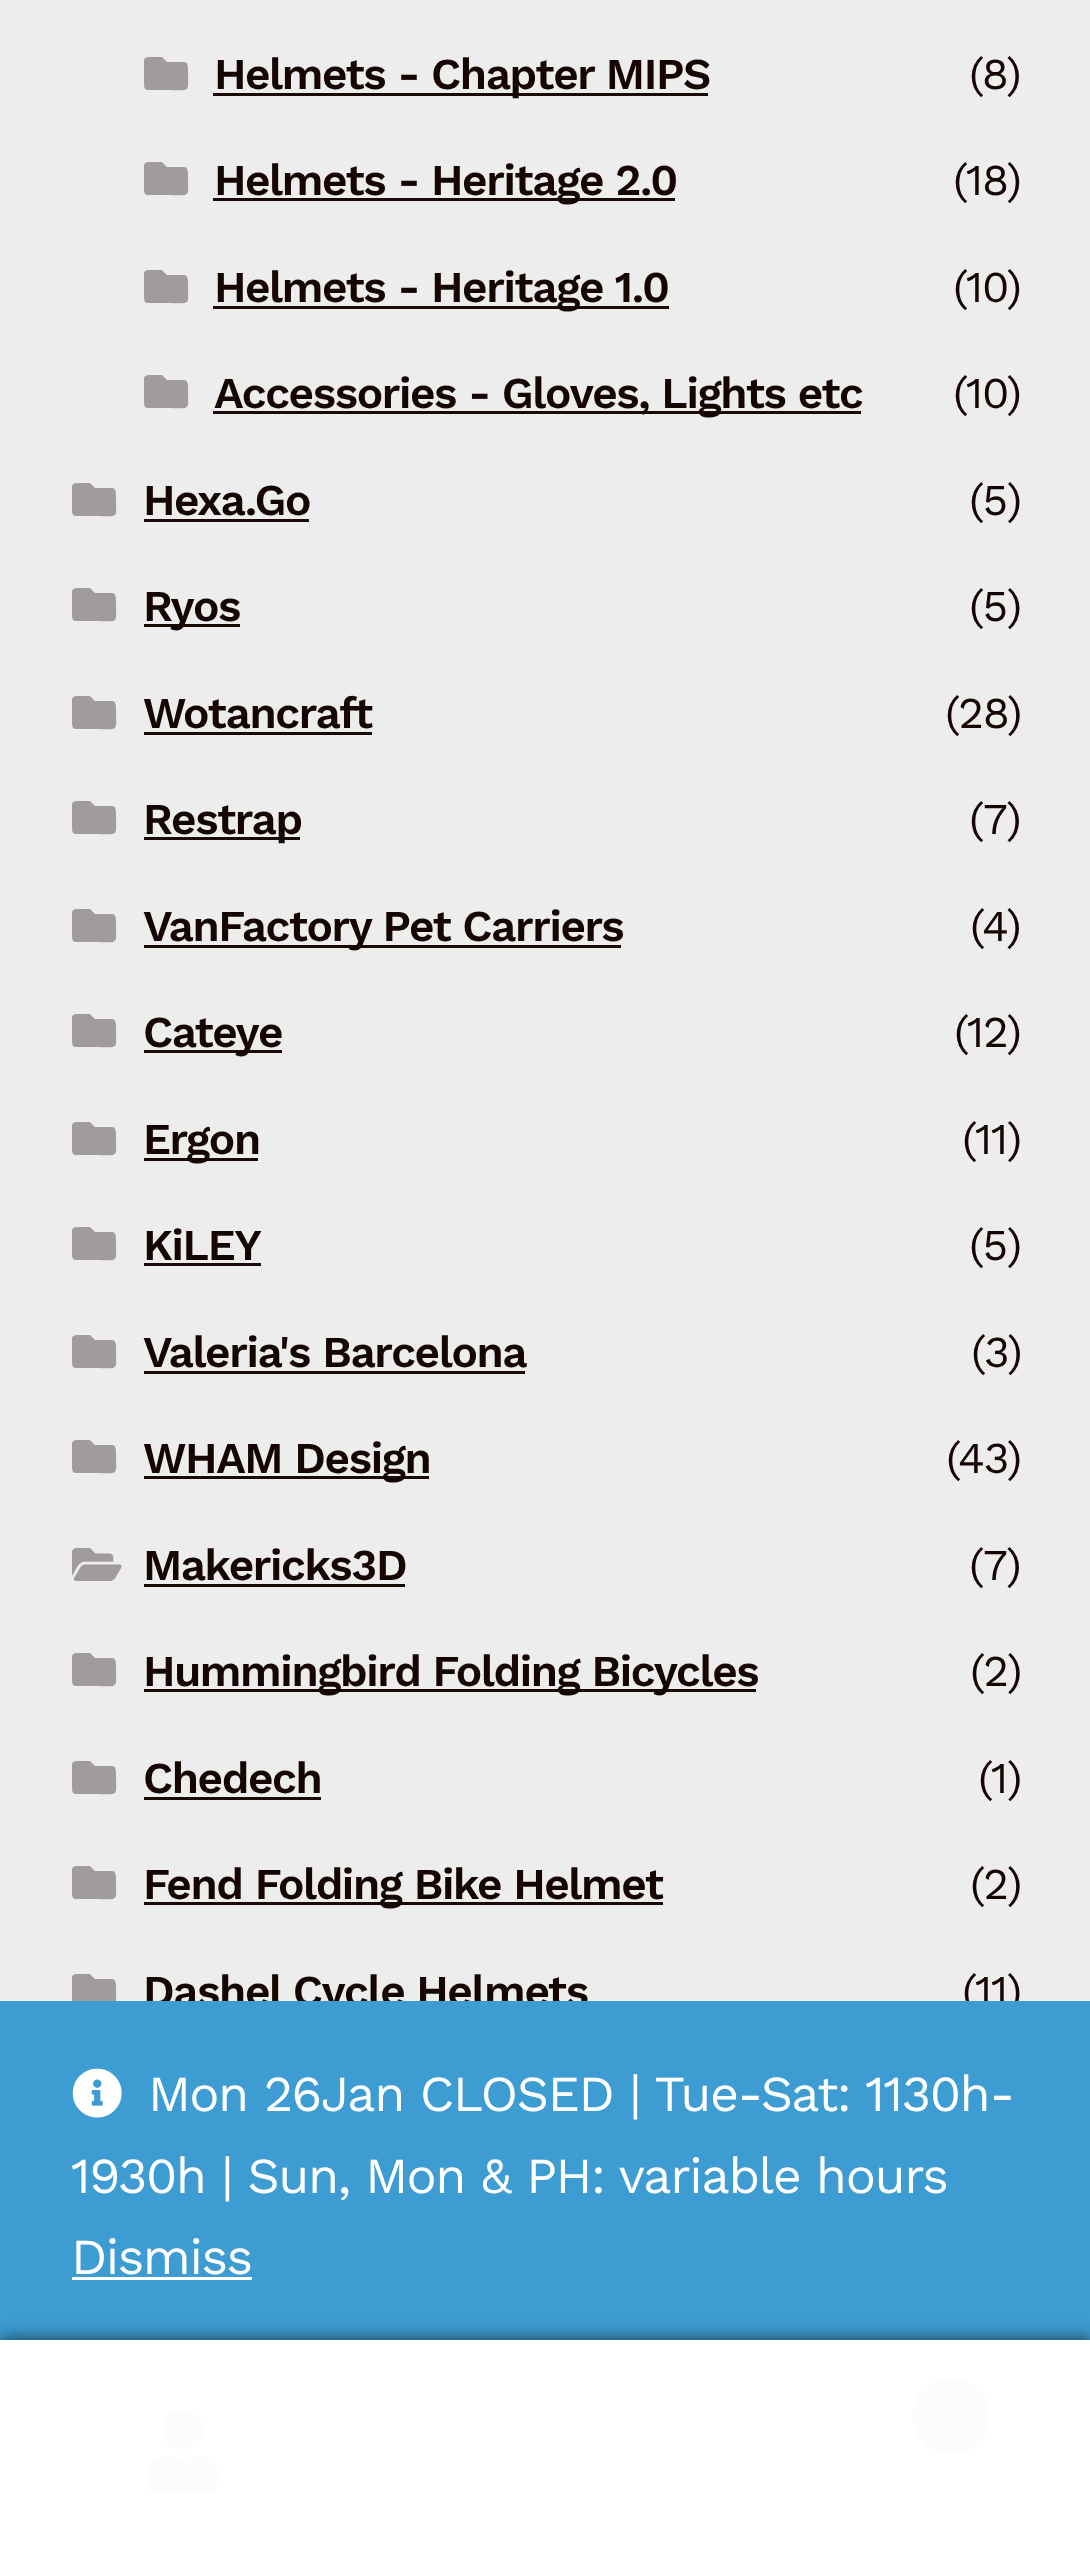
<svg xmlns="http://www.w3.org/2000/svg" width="1090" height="2555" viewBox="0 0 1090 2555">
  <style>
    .t1 { font: 600 44.1px Work Sans; letter-spacing: -1.4px; fill: #150604; }
    .t2 { font: 44.1px Work Sans; letter-spacing: -1.4px; fill: #150604; }
    .t3 { font: 50.4px Work Sans; letter-spacing: -1.4px; fill: #fff; }
  </style>
  <rect width="100%" height="100%" fill="#ededed"/>
  <path d="M184 62C188 62 188 67 188 70C188 94 192 90 166 90H154C145 90 144 91 144 82V61C144 56 150 57 153 57H162L167 62Z" fill="#a19c9b"/>
  <rect x="213" y="93" width="495" height="3" fill="#1a0b09"/>
  <text x="214" y="89" class="t1">Helmets - Chapter MIPS</text>
  <text x="969" y="89" class="t2">(8)</text>
  <path d="M184 167C188 167 188 172 188 175C188 199 192 195 166 195H154C145 195 144 196 144 187V166C144 161 150 162 153 162H162L167 167Z" fill="#a19c9b"/>
  <rect x="213" y="198" width="462" height="3" fill="#1a0b09"/>
  <text x="214" y="195" class="t1">Helmets - Heritage 2.0</text>
  <text x="953" y="195" class="t2">(18)</text>
  <path d="M184 275C188 275 188 280 188 283C188 307 192 303 166 303H154C145 303 144 304 144 295V274C144 269 150 270 153 270H162L167 275Z" fill="#a19c9b"/>
  <rect x="213" y="306" width="456" height="3" fill="#1a0b09"/>
  <text x="214" y="302" class="t1">Helmets - Heritage 1.0</text>
  <text x="953" y="302" class="t2">(10)</text>
  <path d="M184 380C188 380 188 385 188 388C188 412 192 408 166 408H154C145 408 144 409 144 400V379C144 374 150 375 153 375H162L167 380Z" fill="#a19c9b"/>
  <rect x="213" y="411" width="648" height="3" fill="#1a0b09"/>
  <text x="214" y="408" class="t1">Accessories - Gloves, Lights etc</text>
  <text x="953" y="408" class="t2">(10)</text>
  <path d="M112 488C116 488 116 493 116 496C116 520 120 516 94 516H82C73 516 72 517 72 508V487C72 482 78 483 81 483H90L95 488Z" fill="#a19c9b"/>
  <text x="143" y="515" class="t1">Hexa.Go</text>
  <rect x="144" y="519" width="165" height="3" fill="#1a0b09"/>
  <text x="969" y="515" class="t2">(5)</text>
  <path d="M112 593C116 593 116 598 116 601C116 625 120 621 94 621H82C73 621 72 622 72 613V592C72 587 78 588 81 588H90L95 593Z" fill="#a19c9b"/>
  <rect x="144" y="624" width="96" height="3" fill="#1a0b09"/>
  <text x="143" y="621" class="t1">Ryos</text>
  <text x="969" y="621" class="t2">(5)</text>
  <path d="M112 701C116 701 116 706 116 709C116 733 120 729 94 729H82C73 729 72 730 72 721V700C72 695 78 696 81 696H90L95 701Z" fill="#a19c9b"/>
  <text x="143" y="728" class="t1">Wotancraft</text>
  <rect x="144" y="732" width="228" height="3" fill="#1a0b09"/>
  <text x="945" y="728" class="t2">(28)</text>
  <path d="M112 806C116 806 116 811 116 814C116 838 120 834 94 834H82C73 834 72 835 72 826V805C72 800 78 801 81 801H90L95 806Z" fill="#a19c9b"/>
  <rect x="144" y="837" width="156" height="3" fill="#1a0b09"/>
  <text x="143" y="834" class="t1">Restrap</text>
  <text x="969" y="834" class="t2">(7)</text>
  <path d="M112 914C116 914 116 919 116 922C116 946 120 942 94 942H82C73 942 72 943 72 934V913C72 908 78 909 81 909H90L95 914Z" fill="#a19c9b"/>
  <rect x="144" y="945" width="477" height="3" fill="#1a0b09"/>
  <text x="143" y="941" class="t1">VanFactory Pet Carriers</text>
  <text x="970" y="941" class="t2">(4)</text>
  <path d="M112 1019C116 1019 116 1024 116 1027C116 1051 120 1047 94 1047H82C73 1047 72 1048 72 1039V1018C72 1013 78 1014 81 1014H90L95 1019Z" fill="#a19c9b"/>
  <rect x="144" y="1050" width="138" height="3" fill="#1a0b09"/>
  <text x="143" y="1047" class="t1">Cateye</text>
  <text x="954" y="1047" class="t2">(12)</text>
  <path d="M112 1127C116 1127 116 1132 116 1135C116 1159 120 1155 94 1155H82C73 1155 72 1156 72 1147V1126C72 1121 78 1122 81 1122H90L95 1127Z" fill="#a19c9b"/>
  <rect x="144" y="1158" width="114" height="3" fill="#1a0b09"/>
  <text x="143" y="1154" class="t1">Ergon</text>
  <text x="962" y="1154" class="t2">(11)</text>
  <path d="M112 1232C116 1232 116 1237 116 1240C116 1264 120 1260 94 1260H82C73 1260 72 1261 72 1252V1231C72 1226 78 1227 81 1227H90L95 1232Z" fill="#a19c9b"/>
  <text x="143" y="1260" class="t1">KiLEY</text>
  <rect x="144" y="1263" width="117" height="3" fill="#1a0b09"/>
  <text x="969" y="1260" class="t2">(5)</text>
  <path d="M112 1340C116 1340 116 1345 116 1348C116 1372 120 1368 94 1368H82C73 1368 72 1369 72 1360V1339C72 1334 78 1335 81 1335H90L95 1340Z" fill="#a19c9b"/>
  <text x="143" y="1367" class="t1">Valeria's Barcelona</text>
  <rect x="144" y="1371" width="381" height="3" fill="#1a0b09"/>
  <text x="971" y="1367" class="t2">(3)</text>
  <path d="M112 1445C116 1445 116 1450 116 1453C116 1477 120 1473 94 1473H82C73 1473 72 1474 72 1465V1444C72 1439 78 1440 81 1440H90L95 1445Z" fill="#a19c9b"/>
  <rect x="144" y="1476" width="285" height="3" fill="#1a0b09"/>
  <text x="143" y="1473" class="t1">WHAM Design</text>
  <text x="946" y="1473" class="t2">(43)</text>
  <image x="72" y="1547" width="50" height="34" href="images/1.png"/>
  <text x="143" y="1580" class="t1">Makericks3D</text>
  <rect x="144" y="1584" width="261" height="3" fill="#1a0b09"/>
  <text x="969" y="1580" class="t2">(7)</text>
  <path d="M112 1658C116 1658 116 1663 116 1666C116 1690 120 1686 94 1686H82C73 1686 72 1687 72 1678V1657C72 1652 78 1653 81 1653H90L95 1658Z" fill="#a19c9b"/>
  <rect x="144" y="1689" width="612" height="3" fill="#1a0b09"/>
  <text x="143" y="1686" class="t1">Hummingbird Folding Bicycles</text>
  <text x="970" y="1686" class="t2">(2)</text>
  <path d="M112 1766C116 1766 116 1771 116 1774C116 1798 120 1794 94 1794H82C73 1794 72 1795 72 1786V1765C72 1760 78 1761 81 1761H90L95 1766Z" fill="#a19c9b"/>
  <text x="143" y="1793" class="t1">Chedech</text>
  <rect x="144" y="1797" width="177" height="3" fill="#1a0b09"/>
  <text x="978" y="1793" class="t2">(1)</text>
  <path d="M112 1871C116 1871 116 1876 116 1879C116 1903 120 1899 94 1899H82C73 1899 72 1900 72 1891V1870C72 1865 78 1866 81 1866H90L95 1871Z" fill="#a19c9b"/>
  <rect x="144" y="1902" width="519" height="3" fill="#1a0b09"/>
  <text x="143" y="1899" class="t1">Fend Folding Bike Helmet</text>
  <text x="970" y="1899" class="t2">(2)</text>
  <path d="M112 1979C116 1979 116 1984 116 1987C116 2011 120 2007 94 2007H82C73 2007 72 2008 72 1999V1978C72 1973 78 1974 81 1974H90L95 1979Z" fill="#a19c9b"/>
  <text x="143" y="2006" class="t1">Dashel Cycle Helmets</text>
  <text x="962" y="2006" class="t2">(11)</text>
  <rect x="0" y="2001" width="1090" height="339" fill="#3d9cd2"/>
  <rect x="0" y="2340" width="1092" height="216" fill="#000000b3" filter="blur(9px)"/>
  <rect x="0" y="2340" width="1090" height="215" fill="#fff"/>
  <path d="M197 2444C178 2463 149 2435 168 2416C187 2397 216 2425 197 2444ZM197 2456C204 2456 211 2459 215 2465C218 2470 218 2475 218 2480C218 2493 212 2491 201 2491H164C153 2491 147 2493 147 2480C147 2476 147 2471 149 2467C154 2459 162 2454 171 2456L174 2457C177 2458 180 2458 183 2458C188 2458 192 2456 197 2456Z" fill="#fcfcfc"/>
  <rect x="910.5" y="2377.5" width="81" height="78" rx="39" fill="#fcfcfc" stroke="#fff" stroke-width="3"/>
  <image x="72" y="2068" width="50" height="50" href="images/2.png"/>
  <text x="148" y="2111" class="t3">Mon 26Jan CLOSED | Tue-Sat: 1130h-</text>
  <text x="71" y="2193" word-spacing="-0.25" class="t3">1930h | Sun, Mon &amp; PH: variable hours</text>
  <text x="71" y="2274" class="t3">Dismiss</text>
  <rect x="72" y="2277" width="180" height="3" fill="#fff"/>
</svg>
